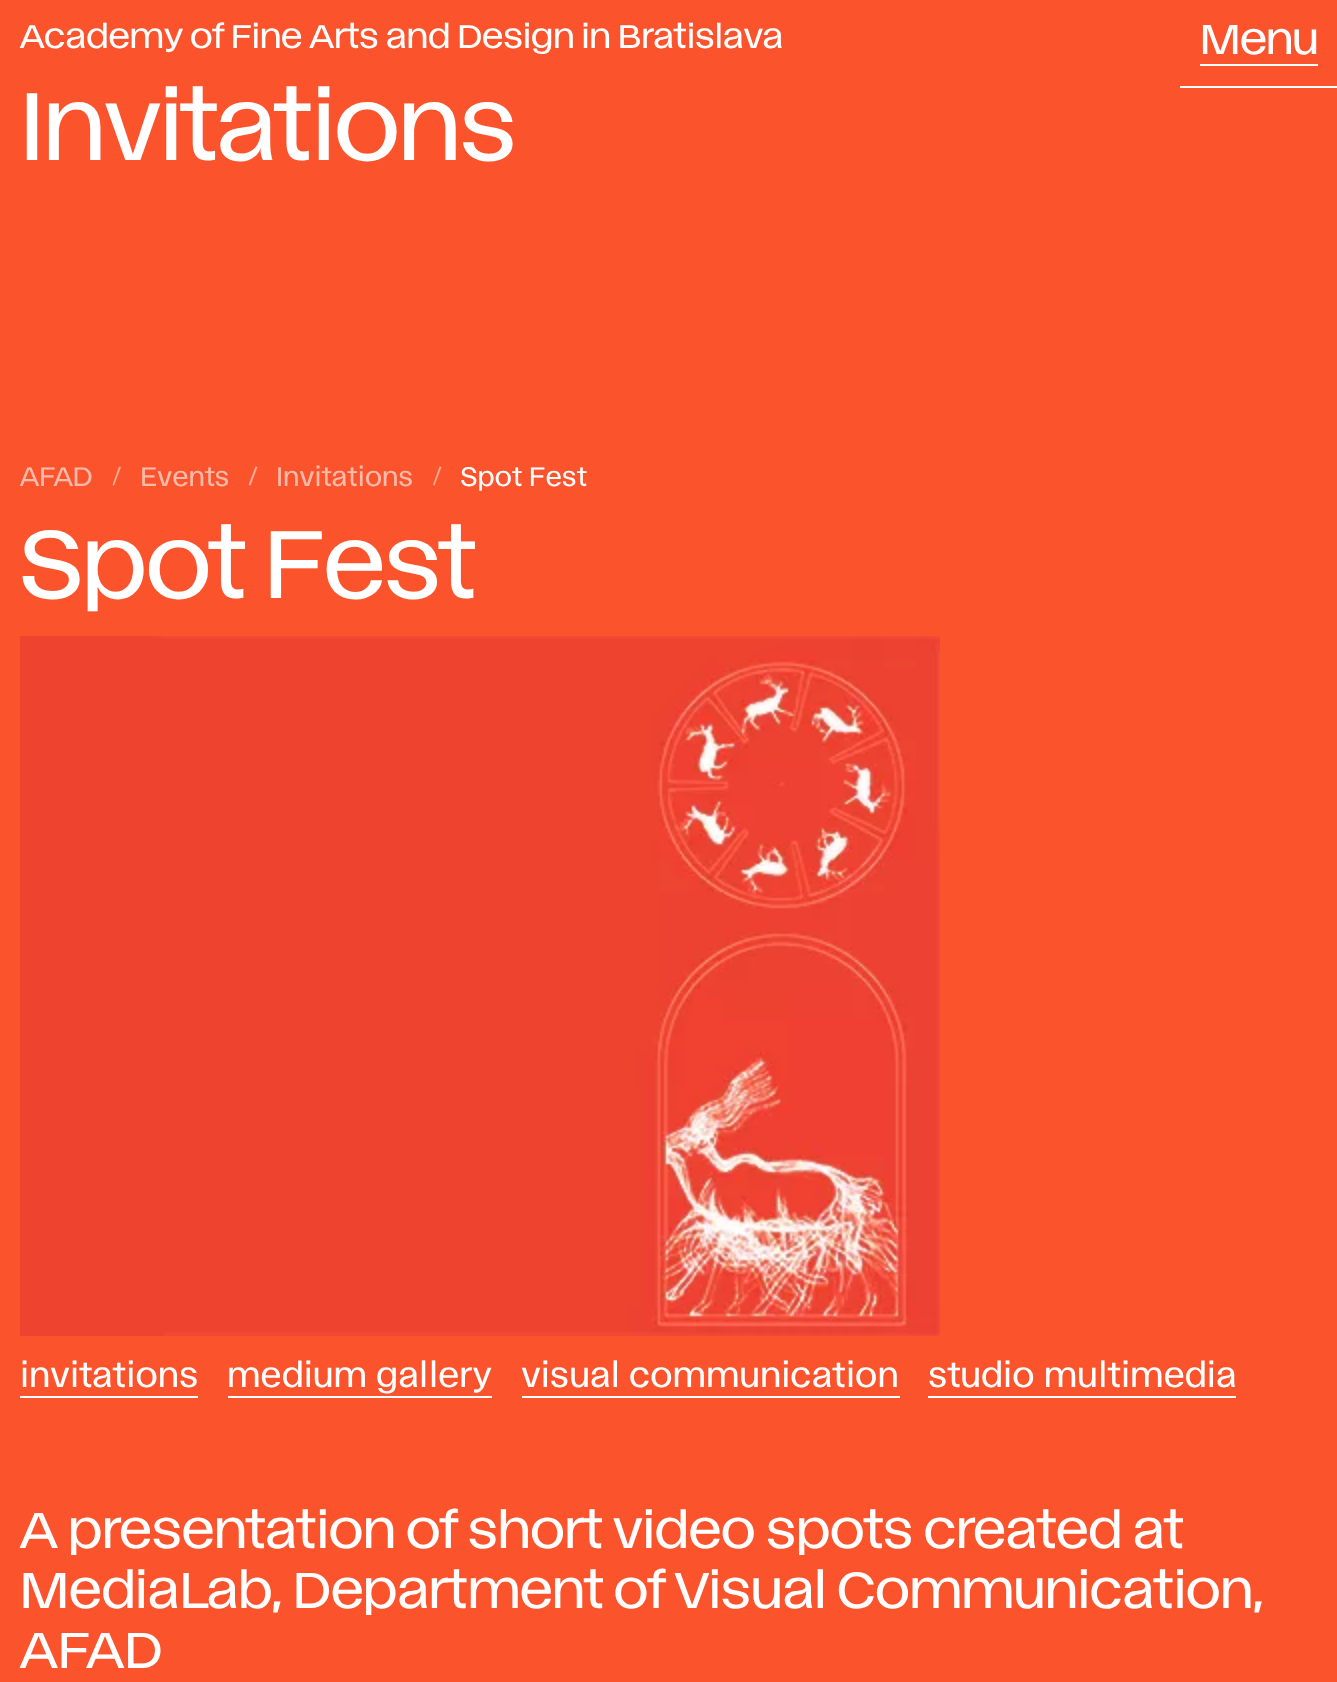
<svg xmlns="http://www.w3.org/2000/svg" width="1337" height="1682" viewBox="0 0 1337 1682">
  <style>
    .t1 { font: 26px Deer; letter-spacing: 0.5px; fill: #fff; }
    .t2 { font: 33px Deer; fill: #fff; }
    .t3 { font: 76px Deer; fill: #fff; }
    .t4 { font: 20px 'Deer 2'; fill: #fdbbab; }
    .t5 { font: 20px 'Deer 2'; fill: #fff; }
    .t6 { font: 26px 'Deer 2'; fill: #fff; }
    .t7 { font: 40px Deer; letter-spacing: 0.5px; fill: #fff; }
  </style>
  <rect width="100%" height="100%" fill="#fb542d"/>
  <text x="20" y="48" class="t1">Academy of Fine Arts and Design in Bratislava</text>
  <text x="1200" y="54" class="t2">Menu</text>
  <rect x="1200" y="64" width="118" height="2" fill="#fff"/>
  <rect x="1180" y="86" width="157" height="2" fill="#fff"/>
  <text x="20" y="160" class="t3">Invitations</text>
  <text x="20" y="486" class="t4">AFAD</text>
  <path d="M119 466.5L121 467L114 485.5L112.5 485Z" fill="#fdaa96"/>
  <text x="140" y="486" class="t4">Events</text>
  <path d="M255.5 466.5L257.5 467L250.5 485.5L248.5 485Z" fill="#fdaa96"/>
  <text x="276" y="486" class="t4">Invitations</text>
  <path d="M439.5 466.5L441.5 467L434.5 485.5L433 485Z" fill="#fdaa96"/>
  <text x="460" y="486" class="t5">Spot Fest</text>
  <text x="20" y="598" class="t3">Spot Fest</text>
  <image x="20" y="636" width="920" height="700" href="images/1.png"/>
  <text x="20" y="1387" class="t6">invitations</text>
  <rect x="20" y="1396" width="178" height="2" fill="#fff"/>
  <text x="227" y="1387" class="t6">medium gallery</text>
  <rect x="228" y="1396" width="264" height="2" fill="#fff"/>
  <text x="521" y="1387" class="t6">visual communication</text>
  <rect x="522" y="1396" width="378" height="2" fill="#fff"/>
  <text x="928" y="1387" class="t6">studio multimedia</text>
  <rect x="928" y="1396" width="308" height="2" fill="#fff"/>
  <text x="20" y="1548" class="t7">A presentation of short video spots created at</text>
  <text x="20" y="1608" class="t7">MediaLab, Department of Visual Communication,</text>
  <text x="20" y="1668" class="t7">AFAD</text>
</svg>
